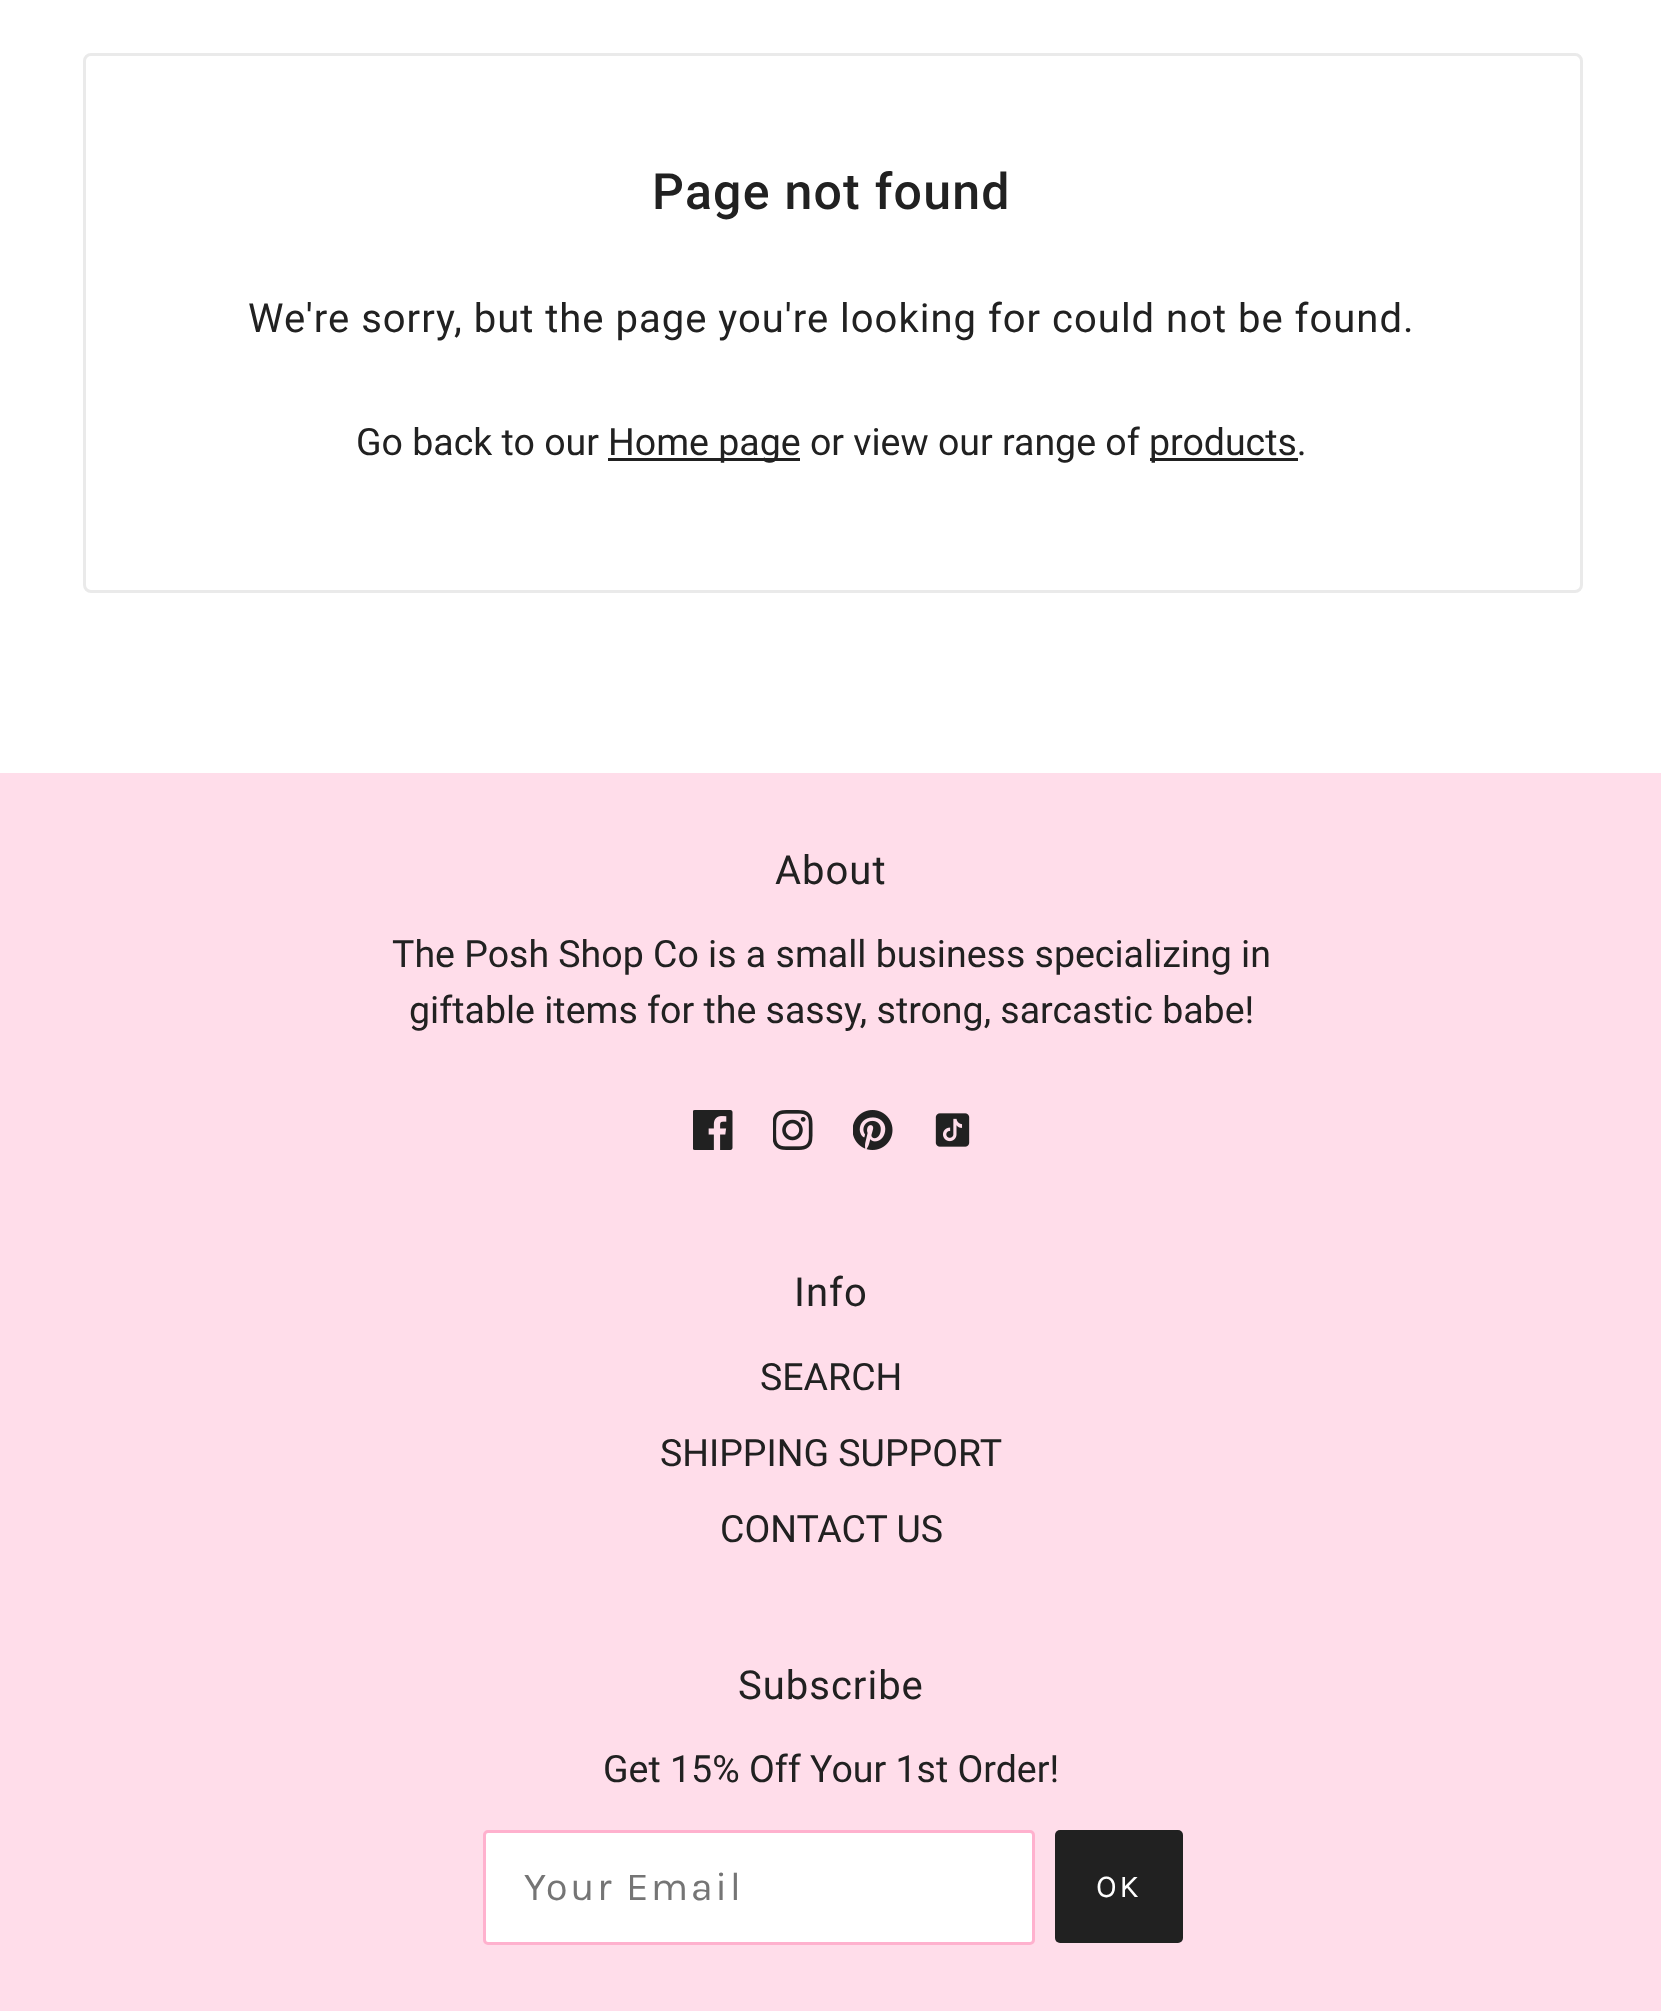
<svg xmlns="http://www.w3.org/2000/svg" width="1661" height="2011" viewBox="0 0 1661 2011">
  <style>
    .t1 { font: 500 50px Roboto; letter-spacing: 1.25px; fill: #212121; }
    .t2 { font: 40px Roboto; letter-spacing: 1px; fill: #212121; }
    .t3 { font: 37.5px Roboto; fill: #212121; }
    .t4 { font: 40px Karla; letter-spacing: 2.5px; fill: #757575; }
    .t5 { font: 32px Karla; letter-spacing: 2.5px; fill: #fff; }
  </style>
  <rect width="100%" height="100%" fill="#fff"/>
  <rect x="84.5" y="54.5" width="1497" height="537" rx="6.5" fill="none" stroke="#eaeaea" stroke-width="3"/>
  <text x="652" y="209" class="t1">Page not found</text>
  <text x="248" y="332" class="t2">We're sorry, but the page you're looking for could not be found.</text>
  <text x="356" y="455" class="t3">Go back to our</text>
  <rect x="608" y="458" width="192" height="3" fill="#212121"/>
  <text x="608" y="455" class="t3">Home page or view our range of</text>
  <rect x="1150" y="458" width="148" height="3" fill="#212121"/>
  <text x="1149" y="455" class="t3">products.</text>
  <rect x="0" y="773" width="1661" height="1238" fill="#ffddea"/>
  <text x="775" y="884" class="t2">About</text>
  <text x="392" y="967" class="t3">The Posh Shop Co is a small business specializing in</text>
  <text x="409" y="1023" class="t3">giftable items for the sassy, strong, sarcastic babe!</text>
  <image x="693" y="1110" width="40" height="40" href="images/1.png"/>
  <image x="773" y="1110" width="40" height="40" href="images/2.png"/>
  <image x="853" y="1110" width="40" height="40" href="images/3.png"/>
  <image x="935" y="1113" width="35" height="34" href="images/4.png"/>
  <text x="794" y="1306" class="t2">Info</text>
  <text x="760" y="1390" class="t3">SEARCH</text>
  <text x="660" y="1466" class="t3">SHIPPING SUPPORT</text>
  <text x="720" y="1542" class="t3">CONTACT US</text>
  <text x="738" y="1699" class="t2">Subscribe</text>
  <text x="603" y="1782" class="t3">Get 15% Off Your 1st Order!</text>
  <rect x="484.5" y="1831.5" width="549" height="112" rx="3.5" fill="#fff" stroke="#ffb1ce" stroke-width="3"/>
  <text x="524" y="1900" class="t4">Your Email</text>
  <rect x="1055" y="1830" width="128" height="113" rx="5" fill="#212121"/>
  <text x="1096" y="1897" class="t5">OK</text>
</svg>
